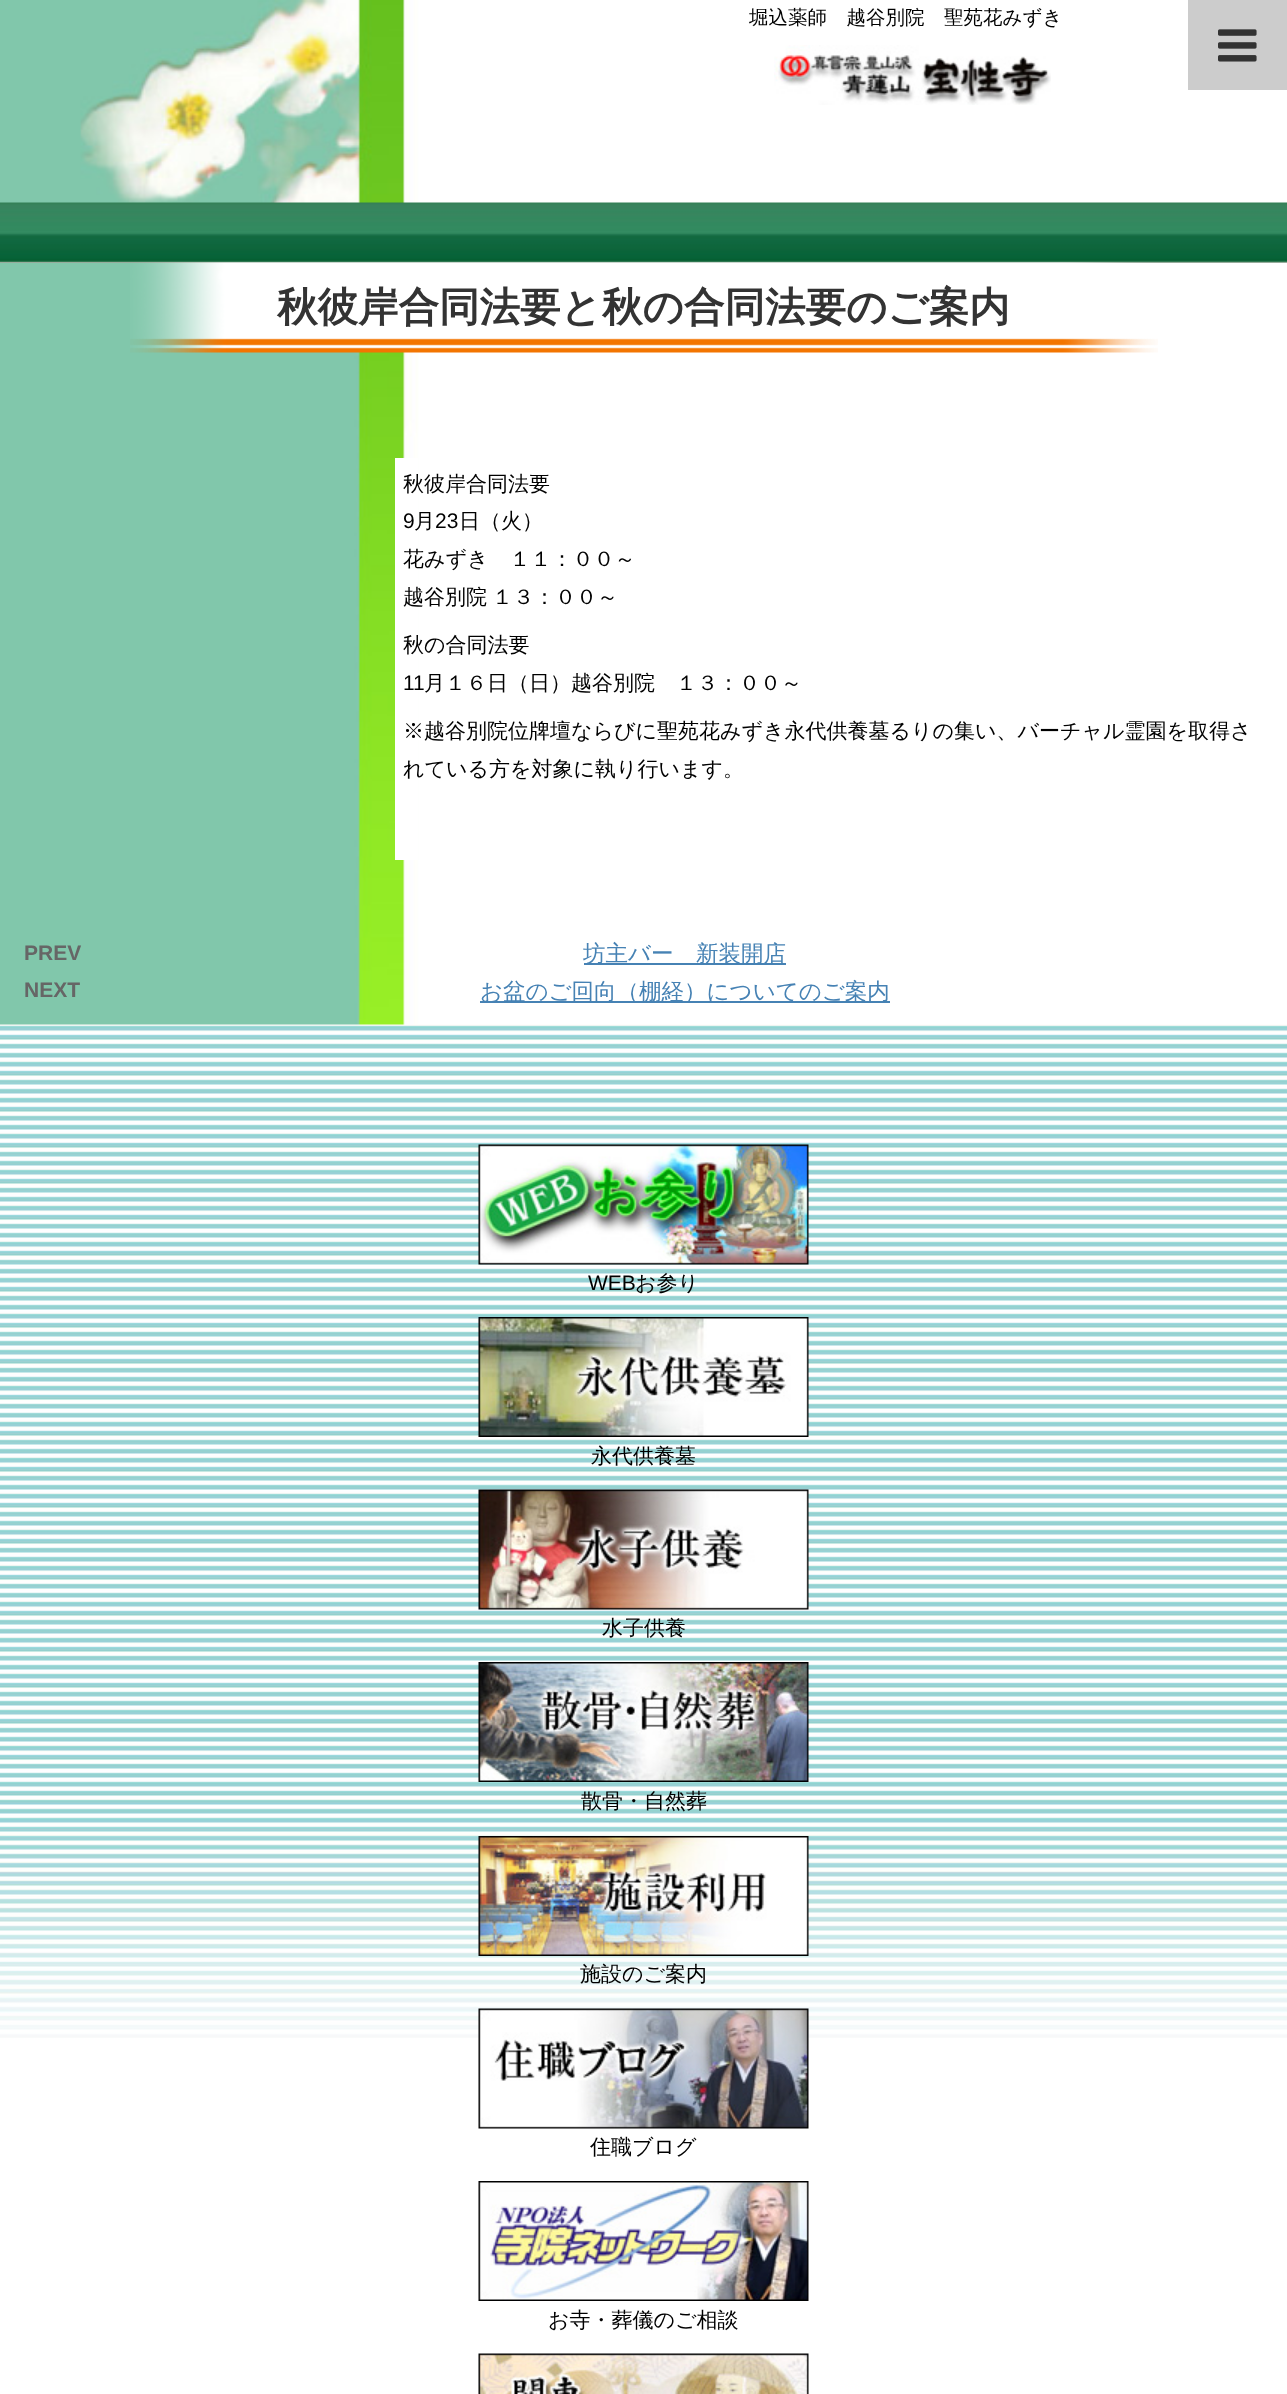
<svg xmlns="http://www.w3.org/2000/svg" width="1287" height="2394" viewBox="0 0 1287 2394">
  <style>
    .t1 { font: 500 19.5px WenQuanYi Zen Hei; fill: #000; }
    .t2 { font: bold 40.5px WenQuanYi Zen Hei; fill: #333; }
    .t3 { font: 500 21px WenQuanYi Zen Hei; fill: #000; }
    .t4 { font: 21px Liberation Sans; fill: #000; }
    .t5 { font: bold 21px Liberation Sans; fill: #666; }
    .t6 { font: 500 22.5px WenQuanYi Zen Hei; fill: #4682b4; }
  </style>
  <rect width="100%" height="100%" fill="#fff"/>
  <image x="0" y="0" width="419" height="1025" href="images/1.png"/>
  <text x="749" y="24" class="t1">堀込薬師　越谷別院　聖苑花みずき</text>
  <image x="774" y="45" width="277" height="60" href="images/2.png"/>
  <rect x="1188" y="0" width="99" height="90" fill="#ccc"/>
  <image x="1218" y="29" width="39" height="33" href="images/3.png"/>
  <rect x="0" y="262" width="1287" height="1" fill="#f8dce0"/>
  <image x="0" y="202" width="1287" height="61" href="images/4.png"/>
  <image x="130" y="262" width="1028" height="91" href="images/5.png"/>
  <text x="277" y="321" class="t2">秋彼岸合同法要と秋の合同法要のご案内</text>
  <rect x="395" y="458" width="23" height="402" fill="#fff"/>
  <text x="403" y="491" class="t3">秋彼岸合同法要</text>
  <text x="403" y="528" class="t4">9</text>
  <text x="414" y="528" class="t3">月</text>
  <text x="435" y="528" class="t4">23</text>
  <text x="459" y="528" class="t3">日（火）</text>
  <text x="403" y="566" class="t3">花みずき　１１：００～</text>
  <text x="403" y="604" class="t3">越谷別院</text>
  <text x="492" y="604" class="t3">１３：００～</text>
  <text x="403" y="652" class="t3">秋の合同法要</text>
  <text x="403" y="690" class="t4">11</text>
  <text x="424" y="690" class="t3">月１６日（日）越谷別院　１３：００～</text>
  <text x="403" y="738" class="t3">※越谷別院位牌壇ならびに聖苑花みずき永代供養墓るりの集い、バーチャル霊園を取得さ</text>
  <text x="403" y="776" class="t3">れている方を対象に執り行います。</text>
  <text x="24" y="960" class="t5">PREV</text>
  <rect x="584" y="963" width="202" height="2" fill="#4682b4"/>
  <text x="583" y="961" class="t6">坊主バー　新装開店</text>
  <text x="24" y="997" class="t5">NEXT</text>
  <rect x="480" y="1001" width="410" height="2" fill="#4682b4"/>
  <text x="480" y="999" class="t6">お盆のご回向（棚経）についてのご案内</text>
  <image x="0" y="1024" width="1287" height="1014" href="images/6.png"/>
  <image x="478" y="1144" width="331" height="121" href="images/7.png"/>
  <text x="588" y="1290" class="t4">WEB</text>
  <text x="635" y="1290" class="t3">お参り</text>
  <image x="478" y="1317" width="331" height="120" href="images/8.png"/>
  <text x="591" y="1463" class="t3">永代供養墓</text>
  <image x="478" y="1489" width="331" height="121" href="images/9.png"/>
  <text x="602" y="1635" class="t3">水子供養</text>
  <image x="478" y="1662" width="331" height="120" href="images/10.png"/>
  <text x="581" y="1808" class="t3">散骨・自然葬</text>
  <image x="478" y="1836" width="331" height="120" href="images/11.png"/>
  <text x="580" y="1981" class="t3">施設のご案内</text>
  <image x="478" y="2008" width="331" height="121" href="images/12.png"/>
  <text x="590" y="2154" class="t3">住職ブログ</text>
  <image x="478" y="2181" width="331" height="120" href="images/13.png"/>
  <text x="548" y="2327" class="t3">お寺・葬儀のご相談</text>
  <image x="478" y="2353" width="331" height="41" href="images/14.png"/>
</svg>
